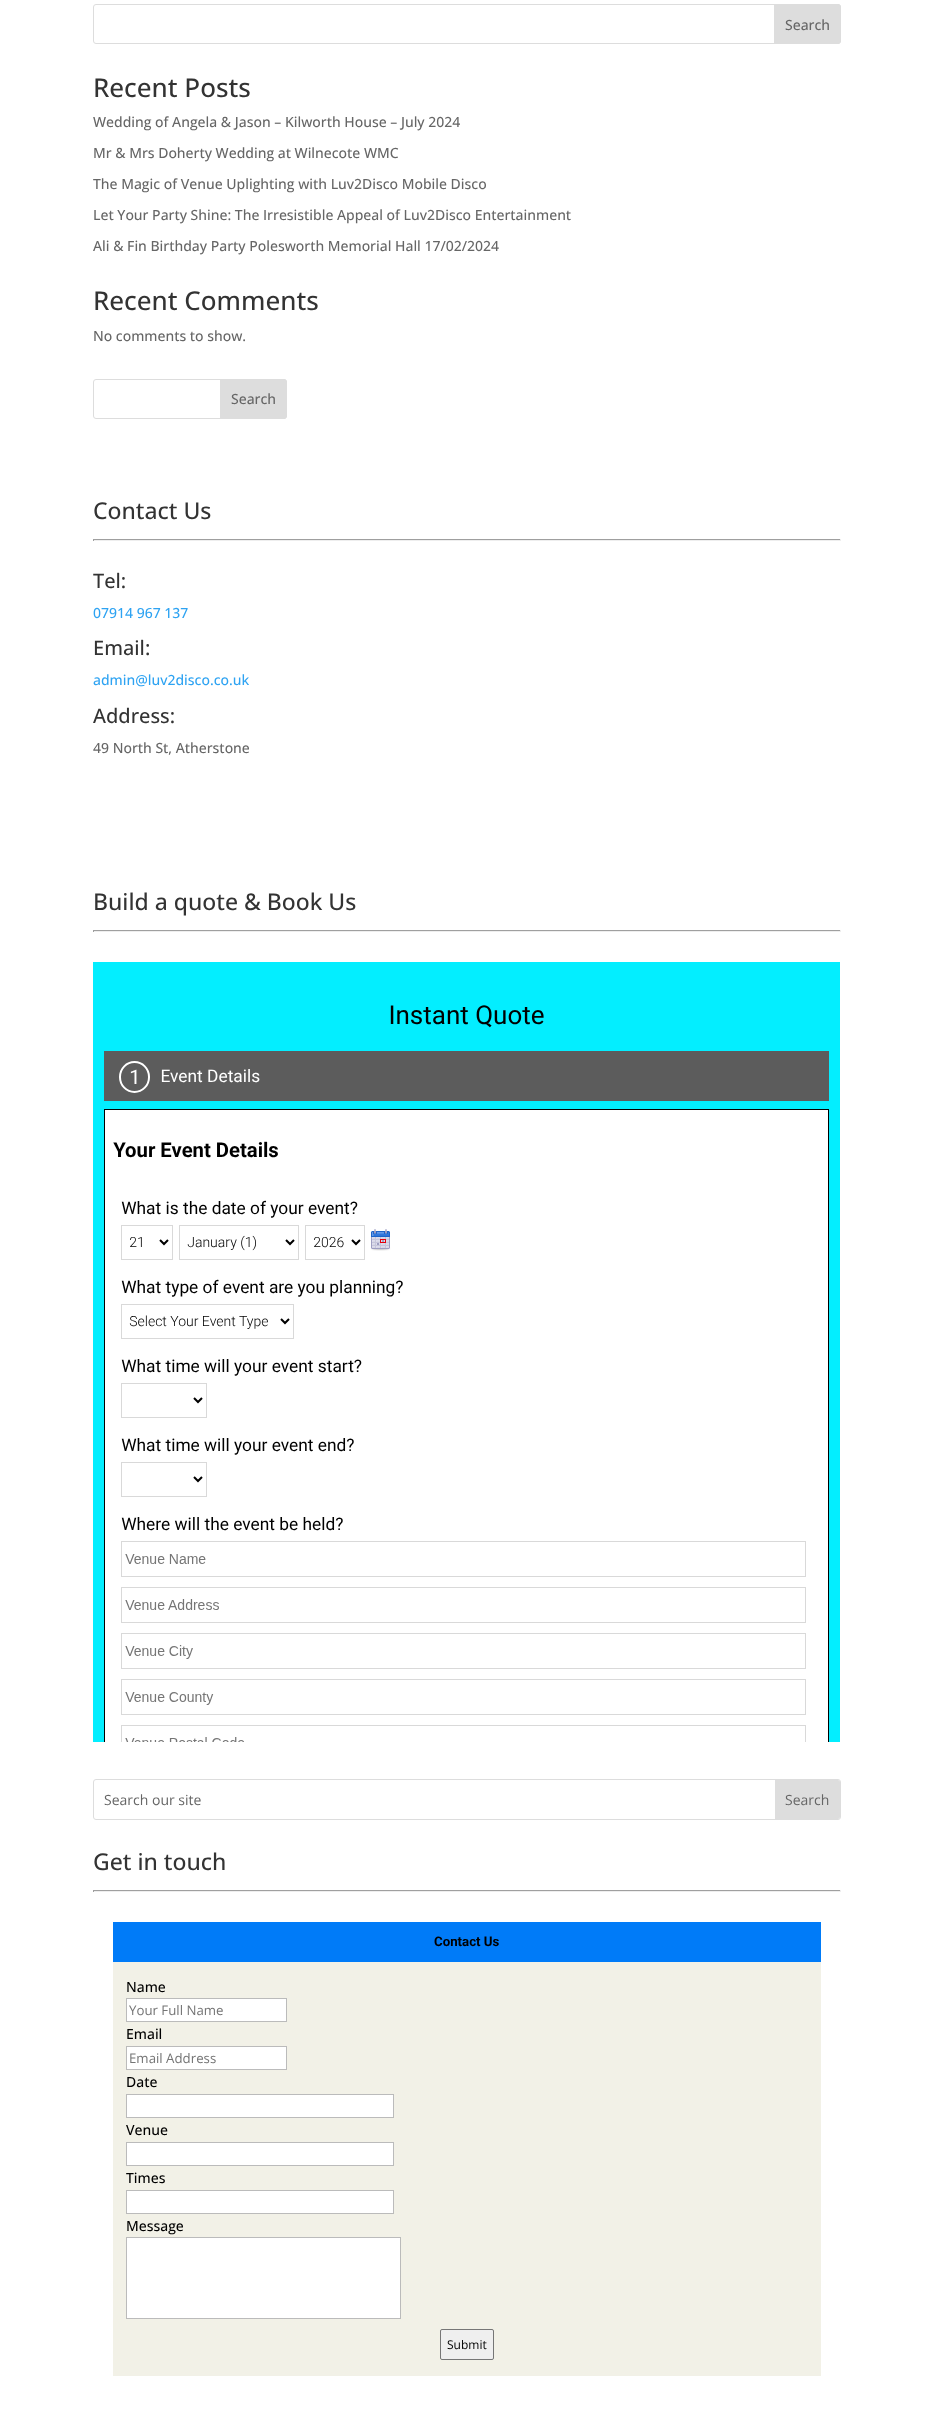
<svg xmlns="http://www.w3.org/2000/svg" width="934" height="2434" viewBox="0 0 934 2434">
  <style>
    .t1 { font: 500 14px Open Sans; fill: #666; }
    .t2 { font: 500 26px Open Sans; fill: #333; }
    .t3 { font: 500 23px Open Sans; fill: #333; }
    .t4 { font: 500 20px Open Sans; fill: #333; }
    .t5 { font: 500 14px Open Sans; fill: #2ea3f2; }
    .t6 { font: 14px Open Sans; fill: #666; }
    .t7 { font: bold 13.25px Roboto; fill: #000; }
    .t8 { font: 500 14px Open Sans; fill: #000; }
    .t9 { font: 13.25px Open Sans; fill: #757575; }
    .t10 { font: 12px Open Sans; fill: #000; }
  </style>
  <rect width="100%" height="100%" fill="#fff"/>
  <rect x="93.5" y="4.5" width="747" height="39" rx="2.5" fill="none" stroke="#ddd"/>
  <path d="M774.5 4.5H838C839.5 4.5 840.5 5.5 840.5 7V41C840.5 42.5 839.5 43.5 838 43.5H774.5Z" fill="#ddd" stroke="#ddd"/>
  <text x="785" y="30" class="t1">Search</text>
  <text x="93" y="97" class="t2">Recent Posts</text>
  <text x="93" y="127" class="t1">Wedding of Angela &amp; Jason – Kilworth House – July 2024</text>
  <text x="93" y="158" class="t1">Mr &amp; Mrs Doherty Wedding at Wilnecote WMC</text>
  <text x="93" y="189" class="t1">The Magic of Venue Uplighting with Luv2Disco Mobile Disco</text>
  <text x="93" y="220" class="t1">Let Your Party Shine: The Irresistible Appeal of Luv2Disco Entertainment</text>
  <text x="93" y="251" class="t1">Ali &amp; Fin Birthday Party Polesworth Memorial Hall 17/02/2024</text>
  <text x="93" y="310" class="t2">Recent Comments</text>
  <text x="93" y="341" class="t1">No comments to show.</text>
  <rect x="93.5" y="379.5" width="193" height="39" rx="2.5" fill="none" stroke="#ddd"/>
  <path d="M220.5 379.5H284C285.5 379.5 286.5 380.5 286.5 382V416C286.5 417.5 285.5 418.5 284 418.5H220.5Z" fill="#ddd" stroke="#ddd"/>
  <text x="231" y="404" class="t1">Search</text>
  <text x="93" y="519" class="t3">Contact Us</text>
  <rect x="93" y="539" width="748" height="1" fill="#9f9f9f"/>
  <rect x="840" y="539" width="1" height="2" fill="#eee"/>
  <rect x="93" y="540" width="748" height="1" fill="#eee"/>
  <rect x="93" y="539" width="1" height="2" fill="#9f9f9f"/>
  <text x="93" y="588" class="t4">Tel:</text>
  <text x="93" y="618" class="t5">07914 967 137</text>
  <text x="93" y="655" class="t4">Email:</text>
  <text x="93" y="685" class="t5">admin@luv2disco.co.uk</text>
  <text x="93" y="723" class="t4">Address:</text>
  <text x="93" y="753" class="t1">49 North St, Atherstone</text>
  <text x="93" y="910" class="t3">Build a quote &amp; Book Us</text>
  <rect x="93" y="930" width="748" height="1" fill="#9f9f9f"/>
  <rect x="840" y="930" width="1" height="2" fill="#eee"/>
  <rect x="93" y="931" width="748" height="1" fill="#eee"/>
  <rect x="93" y="930" width="1" height="2" fill="#9f9f9f"/>
  <image x="93" y="962" width="747" height="780" href="images/1.png"/>
  <rect x="93.5" y="1779.5" width="747" height="40" rx="2.5" fill="none" stroke="#ddd"/>
  <text x="104" y="1805" class="t6">Search our site</text>
  <path d="M775 1780H838C839 1780 840 1781 840 1782V1817C840 1818 839 1819 838 1819H775Z" fill="#ddd"/>
  <text x="785" y="1805" class="t6">Search</text>
  <text x="93" y="1870" class="t3">Get in touch</text>
  <rect x="93" y="1890" width="748" height="1" fill="#9f9f9f"/>
  <rect x="840" y="1890" width="1" height="2" fill="#eee"/>
  <rect x="93" y="1891" width="748" height="1" fill="#eee"/>
  <rect x="93" y="1890" width="1" height="2" fill="#9f9f9f"/>
  <rect x="113" y="1922" width="708" height="40" fill="#007bf8"/>
  <text x="434" y="1946" class="t7">Contact Us</text>
  <rect x="113" y="1962" width="708" height="414" fill="#f2f1e7"/>
  <text x="126" y="1992" class="t8">Name</text>
  <rect x="126.5" y="1998.5" width="160" height="23" fill="#fff" stroke="#bbb"/>
  <text x="129" y="2015" class="t9">Your Full Name</text>
  <text x="126" y="2039" class="t8">Email</text>
  <rect x="126.5" y="2046.5" width="160" height="23" fill="#fff" stroke="#bbb"/>
  <text x="129" y="2063" class="t9">Email Address</text>
  <text x="126" y="2087" class="t8">Date</text>
  <rect x="126.5" y="2094.5" width="267" height="23" fill="#fff" stroke="#bbb"/>
  <text x="126" y="2135" class="t8">Venue</text>
  <rect x="126.5" y="2142.5" width="267" height="23" fill="#fff" stroke="#bbb"/>
  <text x="126" y="2183" class="t8">Times</text>
  <rect x="126.5" y="2190.5" width="267" height="23" fill="#fff" stroke="#bbb"/>
  <text x="126" y="2231" class="t8">Message</text>
  <rect x="126.5" y="2237.5" width="274" height="81" fill="#fff" stroke="#bbb"/>
  <rect x="440.5" y="2329.5" width="53" height="30" rx="1.5" fill="#efefef" stroke="#767676"/>
  <text x="447" y="2349" class="t10">Submit</text>
</svg>
